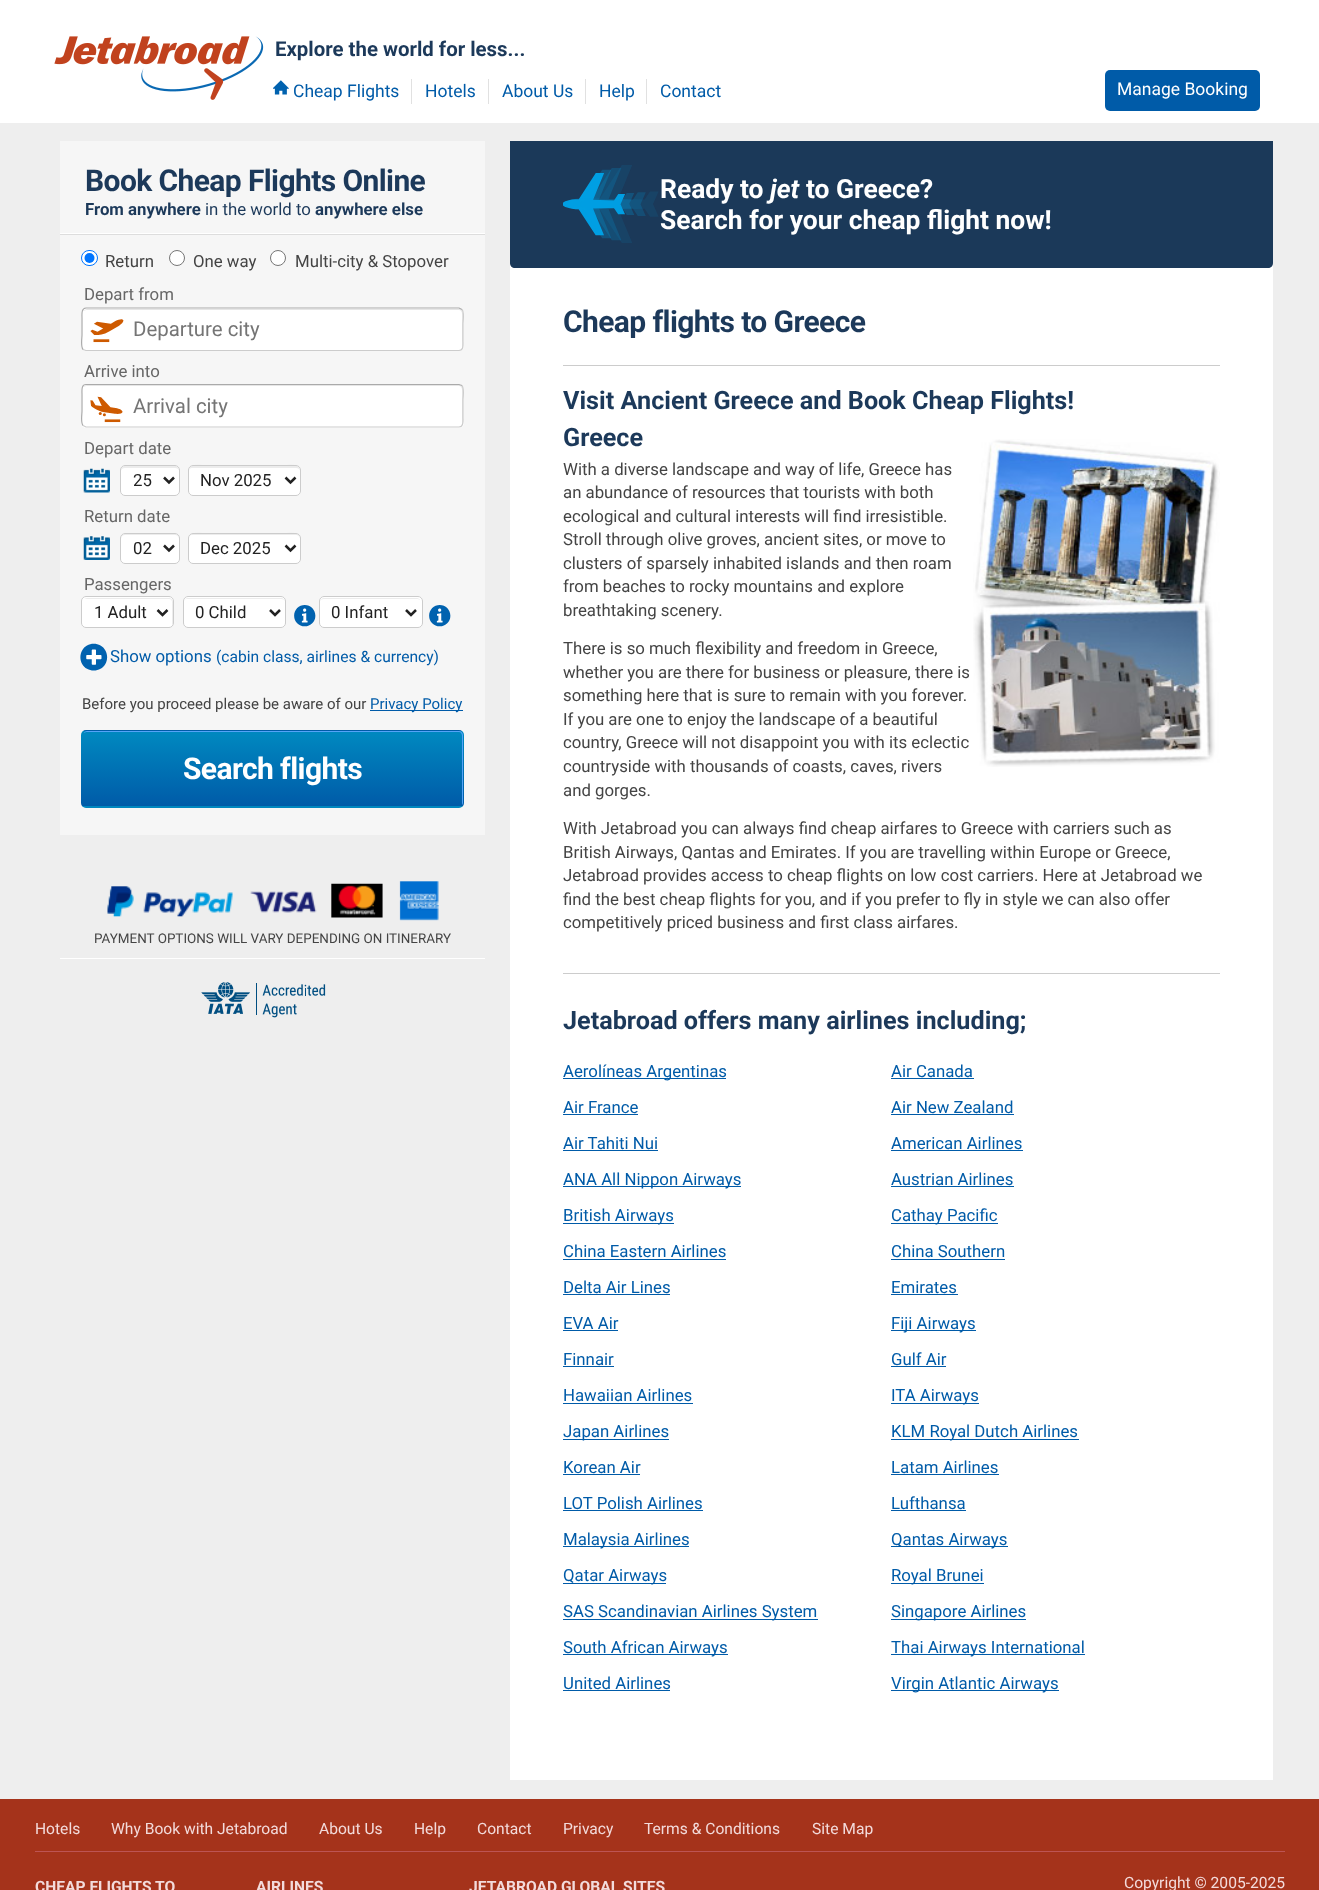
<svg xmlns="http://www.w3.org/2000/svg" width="1319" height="1890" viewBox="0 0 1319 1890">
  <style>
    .t1 { font: bold 20.4px Roboto; fill: #1c395a; }
    .t2 { font: 17.5px Roboto; fill: #005ba8; }
    .t3 { font: 17.5px Roboto; fill: #fff; }
    .t4 { font: bold 30px Roboto; letter-spacing: -0.6px; fill: #1c395a; }
    .t5 { font: bold 16.8px Roboto; fill: #1c395a; }
    .t6 { font: 16.8px Roboto; fill: #1c395a; }
    .t7 { font: 16.8px Roboto; fill: #444; }
    .t8 { font: 16.8px Roboto; fill: #666; }
    .t9 { font: 20.4px Roboto; fill: #757575; }
    .t10 { font: 16.8px Roboto; fill: #222; }
    .t11 { font: 16.8px Roboto; fill: #005ba8; }
    .t12 { font: 15.6px Roboto; fill: #005ba8; }
    .t13 { font: 15px Roboto; fill: #444; }
    .t14 { font: 15px Roboto; fill: #005ba8; }
    .t15 { font: bold 30px Roboto; letter-spacing: -0.6px; fill: #fff; }
    .t16 { font: 13.45px Roboto; fill: #444; }
    .t17 { font: bold 26.4px Roboto; fill: #fff; }
    .t18 { font: italic bold 26.4px Roboto; fill: #fff; }
    .t19 { font: bold 25.2px Roboto; fill: #1c395a; }
    .t20 { font: 15.6px Roboto; fill: #f3dbdb; }
    .t21 { font: bold 15.6px Roboto; fill: #f3dbdb; }
  </style>
  <defs>
    <clipPath id="clip1"><rect x="81" y="730" width="383" height="78" rx="5"/></clipPath>
    <linearGradient id="g1" gradientUnits="userSpaceOnUse" x1="273" y1="656" x2="273" y2="731"><stop offset="0.05" stop-color="#0087bf"/><stop offset="1" stop-color="#005ba8"/></linearGradient>
    <linearGradient id="g2" gradientUnits="userSpaceOnUse" x1="273" y1="731" x2="273" y2="806"><stop offset="0.05" stop-color="#0087bf"/><stop offset="1" stop-color="#005ba8"/></linearGradient>
    <linearGradient id="g3" gradientUnits="userSpaceOnUse" x1="273" y1="806" x2="273" y2="881"><stop offset="0.05" stop-color="#0087bf"/><stop offset="1" stop-color="#005ba8"/></linearGradient>
  </defs>
  <rect width="100%" height="100%" fill="#eee"/>
  <rect x="0" y="0" width="1319" height="123" fill="#fff"/>
  <image x="54" y="36" width="210" height="64" href="images/1.png"/>
  <text x="275" y="56" class="t1">Explore the world for less...</text>
  <rect x="411" y="79" width="1" height="25" fill="#e1e1e1"/>
  <image x="273" y="80" width="16" height="15" href="images/2.png"/>
  <text x="293" y="97" class="t2">Cheap Flights</text>
  <rect x="488" y="79" width="1" height="25" fill="#e1e1e1"/>
  <text x="425" y="97" class="t2">Hotels</text>
  <rect x="585" y="79" width="1" height="25" fill="#e1e1e1"/>
  <text x="502" y="97" class="t2">About Us</text>
  <rect x="646" y="79" width="1" height="25" fill="#e1e1e1"/>
  <text x="599" y="97" class="t2">Help</text>
  <text x="660" y="97" class="t2">Contact</text>
  <rect x="1105" y="70" width="155" height="41" rx="5" fill="#005ba8"/>
  <text x="1117" y="95" class="t3">Manage Booking</text>
  <rect x="60" y="141" width="425" height="694" fill="#f6f6f6"/>
  <rect x="60" y="234" width="425" height="1" fill="#ddd"/>
  <text x="85" y="191" class="t4">Book Cheap Flights Online</text>
  <rect x="60" y="233" width="425" height="1" fill="#fff"/>
  <text x="85" y="215" class="t5">From anywhere</text>
  <text x="205" y="215" class="t6">in the world to</text>
  <text x="315" y="215" class="t5">anywhere else</text>
  <rect x="81.5" y="250.5" width="16" height="15" rx="7.5" fill="#fff" stroke="#0075ff"/>
  <circle cx="89.5" cy="258" r="5" fill="#0075ff"/>
  <text x="105" y="267" class="t7">Return</text>
  <circle cx="177" cy="258" r="7.5" fill="#fff" stroke="#767676"/>
  <text x="193" y="267" class="t7">One way</text>
  <circle cx="278" cy="258" r="7.5" fill="#fff" stroke="#767676"/>
  <text x="295" y="267" class="t7">Multi-city &amp; Stopover</text>
  <text x="84" y="300" class="t8">Depart from</text>
  <rect x="81" y="308" width="383" height="43" rx="5" fill="#fff"/>
  <path d="M86 310H459C461 310 462 312 462 314V349C463 348 463 347 463 346V313C463 311 461 309 459 309H87C86 309 84 310 84 311Z" fill="#e6e6e6"/>
  <path d="M462 309.5C464.5 312 463 321 463 324V340.5C463 344 464 350.5 459 350.5H86L83 349.5" fill="none" stroke="#ccc" stroke-width="1.2"/>
  <path d="M83 349.5C80.5 346.5 82 338 82 335V318C82 315 81 308 86 308H459L462 309.5" fill="none" stroke="#aaa" stroke-width="1.2"/>
  <image x="90" y="319" width="34" height="24" href="images/3.png"/>
  <text x="133" y="336" class="t9">Departure city</text>
  <text x="84" y="377" class="t8">Arrive into</text>
  <rect x="81" y="384" width="383" height="44" rx="5" fill="#fff"/>
  <path d="M86 386H459C461 386 462 388 462 390V425C463 424 463 423 463 422V389C463 387 461 385 459 385H87C86 385 84 386 84 387Z" fill="#e6e6e6"/>
  <path d="M462 385.5C464.5 388.5 463 397 463 400V417C463 420 464 427 459 427H86L83 425.5" fill="none" stroke="#ccc" stroke-width="1.2"/>
  <path d="M83 425.5C80.5 423 82 414 82 411V394.5C82 391 81 384.5 86 384.5H459L462 385.5" fill="none" stroke="#aaa" stroke-width="1.2"/>
  <image x="90" y="396" width="33" height="27" href="images/4.png"/>
  <text x="133" y="413" class="t9">Arrival city</text>
  <text x="84" y="454" class="t8">Depart date</text>
  <image x="83" y="468" width="27" height="25" href="images/5.png"/>
  <rect x="120" y="465" width="60" height="31" rx="5" fill="#fff"/>
  <path d="M125 468H175C177 468 179 469 179 471C179 464 172 466 167 466H133C128 466 121 464 121 471C121 469 123 468 125 468Z" fill="#ececec"/>
  <rect x="120.5" y="465.5" width="59" height="30" rx="4.5" fill="none" stroke="#ccc"/>
  <path d="M164 477.5L169 482.5L174 477.5" fill="none" stroke="#222" stroke-width="2.5"/>
  <text x="133" y="486" class="t10">25</text>
  <rect x="188" y="465" width="113" height="31" rx="5" fill="#fff"/>
  <path d="M192 468H296C298 468 300 469 300 471C300 461 282 466 279 466H210C207 466 189 461 189 471C189 469 190 468 192 468Z" fill="#ececec"/>
  <rect x="188.5" y="465.5" width="112" height="30" rx="4.5" fill="none" stroke="#ccc"/>
  <path d="M285.5 477.5L290.5 482.5L295.5 477.5" fill="none" stroke="#222" stroke-width="2.5"/>
  <text x="200" y="486" class="t10">Nov 2025</text>
  <text x="84" y="522" class="t8">Return date</text>
  <image x="83" y="536" width="27" height="24" href="images/6.png"/>
  <rect x="120" y="533" width="60" height="31" rx="5" fill="#fff"/>
  <path d="M125 535H175C177 535 179 537 179 539C179 532 172 534 167 534H133C128 534 121 532 121 539C121 537 123 535 125 535Z" fill="#ececec"/>
  <rect x="120.5" y="533.5" width="59" height="30" rx="4.5" fill="none" stroke="#ccc"/>
  <path d="M164 545.5L169 550.5L174 545.5" fill="none" stroke="#222" stroke-width="2.5"/>
  <text x="133" y="554" class="t10">02</text>
  <rect x="188" y="533" width="113" height="31" rx="5" fill="#fff"/>
  <path d="M192 535H296C298 535 300 537 300 539C300 529 282 534 279 534H210C207 534 189 529 189 539C189 537 190 535 192 535Z" fill="#ececec"/>
  <rect x="188.5" y="533.5" width="112" height="30" rx="4.5" fill="none" stroke="#ccc"/>
  <path d="M285.5 545.5L290.5 550.5L295.5 545.5" fill="none" stroke="#222" stroke-width="2.5"/>
  <text x="200" y="554" class="t10">Dec 2025</text>
  <text x="84" y="590" class="t8">Passengers</text>
  <rect x="81" y="596" width="93" height="32" rx="5" fill="#fff"/>
  <path d="M86 599H169C173 599 172 603 172 606V625C173 624 173 623 173 622V602C173 600 171 598 169 598H87C86 598 85 599 84 599Z" fill="#ececec"/>
  <rect x="81.5" y="596.5" width="92" height="31" rx="4.5" fill="none" stroke="#ccc"/>
  <path d="M157.5 610L162.5 615L167.5 610" fill="none" stroke="#222" stroke-width="2.5"/>
  <text x="94" y="618" class="t10">1 Adult</text>
  <rect x="183" y="596" width="103" height="32" rx="5" fill="#fff"/>
  <path d="M188 599H281C283 599 285 600 285 602C285 600 283 598 281 598H188C186 598 185 599 184 600C185 599 186 599 188 599Z" fill="#ececec"/>
  <rect x="183.5" y="596.5" width="102" height="31" rx="4.5" fill="none" stroke="#ccc"/>
  <path d="M270 610L275 615L280 610" fill="none" stroke="#222" stroke-width="2.5"/>
  <text x="195" y="618" class="t10">0 Child</text>
  <image x="294" y="605" width="22" height="22" href="images/7.png"/>
  <rect x="319" y="596" width="104" height="32" rx="5" fill="#fff"/>
  <path d="M324 599H418L420 600C420 599 418 598 417 598H324C322 598 320 600 320 602C320 600 322 599 324 599Z" fill="#ececec"/>
  <rect x="319.5" y="596.5" width="103" height="31" rx="4.5" fill="none" stroke="#ccc"/>
  <path d="M406 610L411 615L416 610" fill="none" stroke="#222" stroke-width="2.5"/>
  <text x="331" y="618" class="t10">0 Infant</text>
  <image x="429" y="605" width="22" height="22" href="images/7.png"/>
  <image x="80" y="643" width="28" height="28" href="images/8.png"/>
  <text x="110" y="662" class="t11">Show options</text>
  <text x="216" y="662" class="t12">(cabin class, airlines &amp; currency)</text>
  <text x="82" y="709" class="t13">Before you proceed please be aware of our</text>
  <rect x="370" y="710" width="93" height="1" fill="#005ba8"/>
  <text x="370" y="709" class="t14">Privacy Policy</text>
  <g clip-path="url(#clip1)">
    <rect x="81" y="730" width="383" height="1" fill="url(#g1)"/>
    <rect x="81" y="731" width="383" height="75" fill="url(#g2)"/>
    <rect x="81" y="806" width="383" height="2" fill="url(#g3)"/>
  </g>
  <path d="M86 732H459C461 732 462 734 462 736V805C463 804 463 803 463 802V735C463 733 461 731 459 731H87C86 731 84 732 84 733Z" fill="#54a3f7"/>
  <text x="183" y="779" class="t15">Search flights</text>
  <rect x="60" y="958" width="425" height="1" fill="#fff"/>
  <image x="107" y="886" width="126" height="31" href="images/9.png"/>
  <image x="250" y="881" width="189" height="40" href="images/10.png"/>
  <text x="94" y="943" class="t16">PAYMENT OPTIONS WILL VARY DEPENDING ON ITINERARY</text>
  <image x="201" y="982" width="125" height="36" href="images/11.png"/>
  <rect x="510" y="263" width="763" height="1517" fill="#fff"/>
  <path d="M510 141H1273V263C1273 266 1271 268 1268 268H515C512 268 510 266 510 263Z" fill="#1b3959"/>
  <image x="563" y="165" width="96" height="78" href="images/12.png"/>
  <text x="660" y="198" class="t17">Ready to</text>
  <text x="770" y="198" class="t18">jet</text>
  <text x="806" y="198" class="t17">to Greece?</text>
  <text x="660" y="229" class="t17">Search for your cheap flight now!</text>
  <text x="563" y="332" class="t4">Cheap flights to Greece</text>
  <rect x="563" y="365" width="657" height="1" fill="#ccc"/>
  <text x="563" y="409" class="t19">Visit Ancient Greece and Book Cheap Flights!</text>
  <text x="563" y="446" class="t19">Greece</text>
  <text x="563" y="475" class="t7">With a diverse landscape and way of life, Greece has</text>
  <text x="563" y="498" class="t7">an abundance of resources that tourists with both</text>
  <text x="563" y="522" class="t7">ecological and cultural interests will find irresistible.</text>
  <text x="563" y="545" class="t7">Stroll through olive groves, ancient sites, or move to</text>
  <text x="563" y="569" class="t7">clusters of sparsely inhabited islands and then roam</text>
  <text x="563" y="592" class="t7">from beaches to rocky mountains and explore</text>
  <text x="563" y="616" class="t7">breathtaking scenery.</text>
  <image x="973" y="439" width="247" height="328" href="images/13.png"/>
  <text x="563" y="654" class="t7">There is so much flexibility and freedom in Greece,</text>
  <text x="563" y="678" class="t7">whether you are there for business or pleasure, there is</text>
  <text x="563" y="701" class="t7">something here that is sure to remain with you forever.</text>
  <text x="563" y="725" class="t7">If you are one to enjoy the landscape of a beautiful</text>
  <text x="563" y="748" class="t7">country, Greece will not disappoint you with its eclectic</text>
  <text x="563" y="772" class="t7">countryside with thousands of coasts, caves, rivers</text>
  <text x="563" y="796" class="t7">and gorges.</text>
  <text x="563" y="834" class="t7">With Jetabroad you can always find cheap airfares to Greece with carriers such as</text>
  <text x="563" y="858" class="t7">British Airways, Qantas and Emirates. If you are travelling within Europe or Greece,</text>
  <text x="563" y="881" class="t7">Jetabroad provides access to cheap flights on low cost carriers. Here at Jetabroad we</text>
  <text x="563" y="905" class="t7">find the best cheap flights for you, and if you prefer to fly in style we can also offer</text>
  <text x="563" y="928" class="t7">competitively priced business and first class airfares.</text>
  <rect x="563" y="973" width="657" height="1" fill="#ccc"/>
  <text x="563" y="1029" class="t19">Jetabroad offers many airlines including;</text>
  <rect x="563" y="1078" width="163" height="1" fill="#005ba8"/>
  <text x="563" y="1077" class="t11">Aerolíneas Argentinas</text>
  <text x="891" y="1077" class="t11">Air Canada</text>
  <rect x="891" y="1078" width="83" height="1" fill="#005ba8"/>
  <text x="563" y="1113" class="t11">Air France</text>
  <rect x="563" y="1114" width="75" height="1" fill="#005ba8"/>
  <text x="891" y="1113" class="t11">Air New Zealand</text>
  <rect x="891" y="1114" width="123" height="1" fill="#005ba8"/>
  <text x="563" y="1149" class="t11">Air Tahiti Nui</text>
  <rect x="563" y="1150" width="95" height="1" fill="#005ba8"/>
  <text x="891" y="1149" class="t11">American Airlines</text>
  <rect x="891" y="1150" width="132" height="1" fill="#005ba8"/>
  <rect x="563" y="1186" width="178" height="1" fill="#005ba8"/>
  <text x="563" y="1185" class="t11">ANA All Nippon Airways</text>
  <text x="891" y="1185" class="t11">Austrian Airlines</text>
  <rect x="891" y="1186" width="123" height="1" fill="#005ba8"/>
  <rect x="563" y="1223" width="111" height="1" fill="#005ba8"/>
  <text x="563" y="1221" class="t11">British Airways</text>
  <rect x="891" y="1223" width="107" height="1" fill="#005ba8"/>
  <text x="891" y="1221" class="t11">Cathay Pacific</text>
  <text x="563" y="1257" class="t11">China Eastern Airlines</text>
  <rect x="563" y="1259" width="163" height="1" fill="#005ba8"/>
  <text x="891" y="1257" class="t11">China Southern</text>
  <rect x="891" y="1259" width="114" height="1" fill="#005ba8"/>
  <text x="563" y="1293" class="t11">Delta Air Lines</text>
  <rect x="563" y="1294" width="107" height="1" fill="#005ba8"/>
  <text x="891" y="1293" class="t11">Emirates</text>
  <rect x="891" y="1294" width="67" height="1" fill="#005ba8"/>
  <text x="563" y="1329" class="t11">EVA Air</text>
  <rect x="563" y="1330" width="55" height="1" fill="#005ba8"/>
  <rect x="891" y="1330" width="85" height="1" fill="#005ba8"/>
  <text x="891" y="1329" class="t11">Fiji Airways</text>
  <text x="563" y="1365" class="t11">Finnair</text>
  <rect x="563" y="1366" width="51" height="1" fill="#005ba8"/>
  <text x="891" y="1365" class="t11">Gulf Air</text>
  <rect x="891" y="1366" width="55" height="1" fill="#005ba8"/>
  <text x="563" y="1401" class="t11">Hawaiian Airlines</text>
  <rect x="563" y="1403" width="130" height="1" fill="#005ba8"/>
  <rect x="891" y="1403" width="88" height="1" fill="#005ba8"/>
  <text x="891" y="1401" class="t11">ITA Airways</text>
  <rect x="563" y="1439" width="106" height="1" fill="#005ba8"/>
  <text x="563" y="1437" class="t11">Japan Airlines</text>
  <rect x="891" y="1439" width="188" height="1" fill="#005ba8"/>
  <text x="891" y="1437" class="t11">KLM Royal Dutch Airlines</text>
  <text x="563" y="1473" class="t11">Korean Air</text>
  <rect x="563" y="1474" width="77" height="1" fill="#005ba8"/>
  <text x="891" y="1473" class="t11">Latam Airlines</text>
  <rect x="891" y="1474" width="108" height="1" fill="#005ba8"/>
  <text x="563" y="1509" class="t11">LOT Polish Airlines</text>
  <rect x="563" y="1510" width="140" height="1" fill="#005ba8"/>
  <text x="891" y="1509" class="t11">Lufthansa</text>
  <rect x="891" y="1510" width="75" height="1" fill="#005ba8"/>
  <rect x="563" y="1546" width="126" height="1" fill="#005ba8"/>
  <text x="563" y="1545" class="t11">Malaysia Airlines</text>
  <rect x="891" y="1546" width="117" height="1" fill="#005ba8"/>
  <text x="891" y="1545" class="t11">Qantas Airways</text>
  <rect x="563" y="1583" width="103" height="1" fill="#005ba8"/>
  <text x="563" y="1581" class="t11">Qatar Airways</text>
  <rect x="891" y="1583" width="93" height="1" fill="#005ba8"/>
  <text x="891" y="1581" class="t11">Royal Brunei</text>
  <rect x="563" y="1619" width="255" height="1" fill="#005ba8"/>
  <text x="563" y="1617" class="t11">SAS Scandinavian Airlines System</text>
  <rect x="891" y="1619" width="135" height="1" fill="#005ba8"/>
  <text x="891" y="1617" class="t11">Singapore Airlines</text>
  <rect x="563" y="1654" width="165" height="1" fill="#005ba8"/>
  <text x="563" y="1653" class="t11">South African Airways</text>
  <rect x="891" y="1654" width="194" height="1" fill="#005ba8"/>
  <text x="891" y="1653" class="t11">Thai Airways International</text>
  <text x="563" y="1689" class="t11">United Airlines</text>
  <rect x="563" y="1690" width="107" height="1" fill="#005ba8"/>
  <rect x="891" y="1690" width="168" height="1" fill="#005ba8"/>
  <text x="891" y="1689" class="t11">Virgin Atlantic Airways</text>
  <rect x="0" y="1799" width="1319" height="91" fill="#a5331b"/>
  <rect x="35" y="1851" width="1250" height="1" fill="#bd5454"/>
  <text x="35" y="1834" class="t20">Hotels</text>
  <text x="111" y="1834" class="t20">Why Book with Jetabroad</text>
  <text x="319" y="1834" class="t20">About Us</text>
  <text x="414" y="1834" class="t20">Help</text>
  <text x="477" y="1834" class="t20">Contact</text>
  <text x="563" y="1834" class="t20">Privacy</text>
  <text x="644" y="1834" class="t20">Terms &amp; Conditions</text>
  <text x="812" y="1834" class="t20">Site Map</text>
  <text x="35" y="1892" class="t21">CHEAP FLIGHTS TO</text>
  <text x="256" y="1892" class="t21">AIRLINES</text>
  <text x="469" y="1892" class="t21">JETABROAD GLOBAL SITES</text>
  <text x="1124" y="1888" class="t20">Copyright © 2005-2025</text>
</svg>
